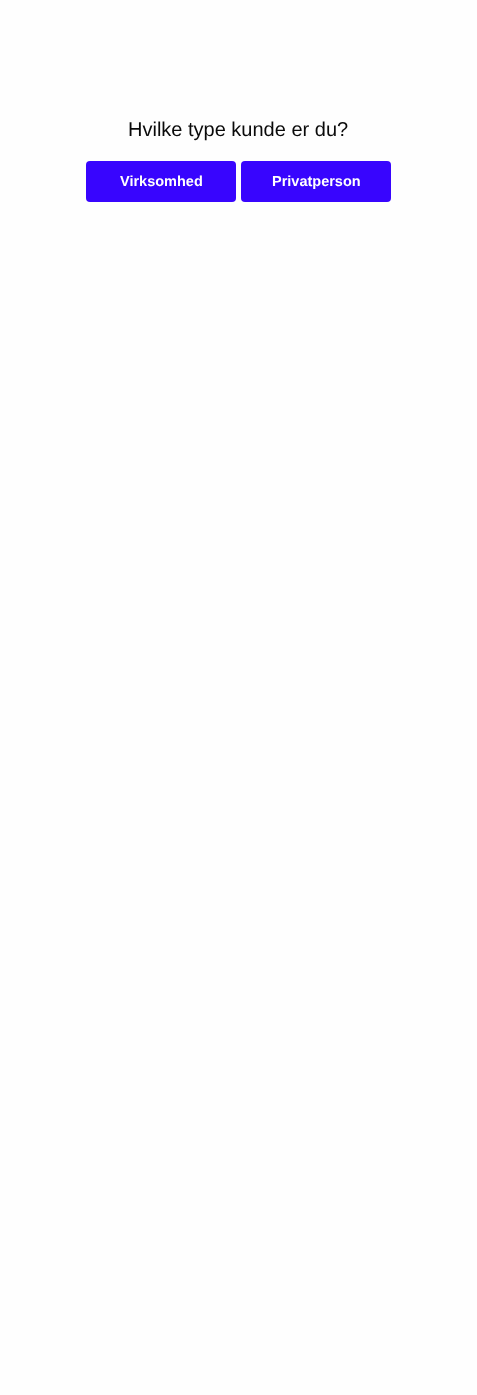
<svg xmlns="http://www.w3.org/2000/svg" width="477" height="1395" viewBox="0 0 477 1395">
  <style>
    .t1 { font: 20px Liberation Sans; fill: #0a0a0a; }
    .t2 { font: bold 14.5px Liberation Sans; fill: #fff; }
  </style>
  <rect width="100%" height="100%" fill="#fefefe"/>
  <text x="128" y="136" class="t1">Hvilke type kunde er du?</text>
  <rect x="86" y="161" width="150" height="41" rx="4" fill="#3805fe"/>
  <text x="120" y="186" class="t2">Virksomhed</text>
  <rect x="241" y="161" width="150" height="41" rx="4" fill="#3805fe"/>
  <text x="272" y="186" class="t2">Privatperson</text>
</svg>
